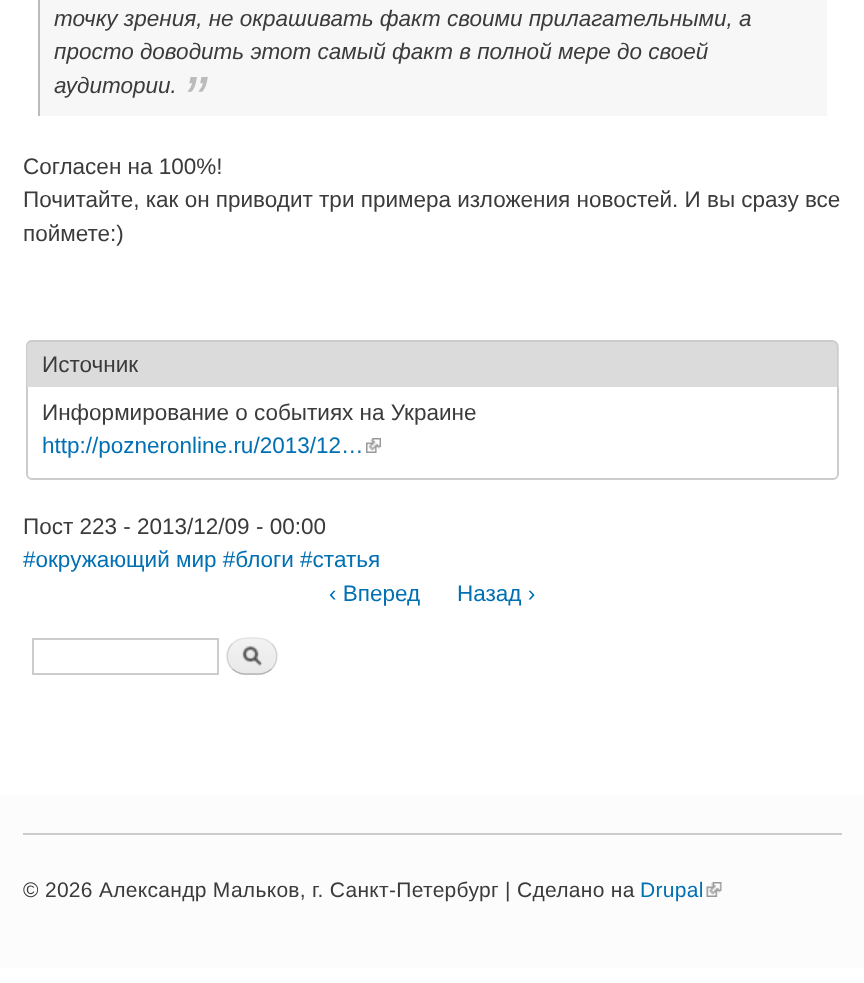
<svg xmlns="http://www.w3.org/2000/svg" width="864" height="983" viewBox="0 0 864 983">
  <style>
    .t1 { font: italic 22.5px Liberation Sans; fill: #3b3b3b; }
    .t2 { font: italic 67px Liberation Sans; fill: #bbb; }
    .t3 { font: 22.5px Liberation Sans; fill: #3b3b3b; }
    .t4 { font: 22.5px Liberation Sans; fill: #0070b3; }
    .t5 { font: 21px Liberation Sans; letter-spacing: 0.3px; fill: #3b3b3b; }
    .t6 { font: 21px Liberation Sans; letter-spacing: 0.3px; fill: #0070b3; }
  </style>
  <rect width="100%" height="100%" fill="#fff"/>
  <rect x="40" y="0" width="787" height="116" fill="#f7f7f7"/>
  <rect x="38" y="0" width="2" height="116" fill="#bbb"/>
  <text x="54" y="26" class="t1">точку зрения, не окрашивать факт своими прилагательными, а</text>
  <text x="54" y="59" class="t1">просто доводить этот самый факт в полной мере до своей</text>
  <text x="54" y="93" class="t1">аудитории.</text>
  <text x="183" y="123" class="t2">”</text>
  <text x="23" y="174" class="t3">Согласен на 100%!</text>
  <text x="23" y="207" class="t3">Почитайте, как он приводит три примера изложения новостей. И вы сразу все</text>
  <text x="23" y="241" class="t3">поймете:)</text>
  <rect x="27" y="358" width="811" height="121" rx="5" fill="none" stroke="#ccc" stroke-width="2"/>
  <path d="M32 341H833C836.5 341 839 343.5 839 347V387H26V347C26 343.5 28.5 341 32 341Z" fill="#dbdbdb"/>
  <path d="M32 340H832C836 340 838 343 838 346V387H26V346C26 343 28 340 32 340ZM32 342H832C835 342 837 344 837 346V387H27V346C27 344 29 342 32 342Z" fill="#ccc" fill-rule="evenodd"/>
  <text x="42" y="372" class="t3">Источник</text>
  <text x="42" y="420" class="t3">Информирование о событиях на Украине</text>
  <text x="42" y="453" class="t4">http://pozneronline.ru/2013/12…</text>
  <image x="366" y="438" width="15" height="15" href="images/1.png"/>
  <text x="23" y="534" class="t3">Пост 223 - 2013/12/09 - 00:00</text>
  <text x="23" y="567" class="t4">#окружающий мир #блоги #статья</text>
  <text x="329" y="601" class="t4">‹ Вперед</text>
  <text x="457" y="601" class="t4">Назад ›</text>
  <rect x="33" y="639" width="185" height="35" fill="none" stroke="#ccc" stroke-width="2"/>
  <image x="226" y="639" width="51" height="36" href="images/2.png"/>
  <path d="M232.5 643.5C238 638 244.5 638 252 638C259.5 638 266 638 271.5 643.5" fill="none" stroke="#e4e4e4" stroke-width="1.5"/>
  <path d="M271.5 643.5C278.5 650.5 278.5 662 271.5 669" fill="none" stroke="#d2d2d2" stroke-width="1.5"/>
  <path d="M271.5 669C266 674.5 259.5 674 252 674C244.5 674 238 674.5 232.5 669" fill="none" stroke="#b4b4b4" stroke-width="1.5"/>
  <path d="M232.5 669C225.5 662 225.5 650.5 232.5 643.5" fill="none" stroke="#d2d2d2" stroke-width="1.5"/>
  <rect x="0" y="795" width="864" height="173" fill="#fcfcfc"/>
  <rect x="23" y="833" width="819" height="2" fill="#ccc"/>
  <text x="23" y="897" class="t5">© 2026 Александр Мальков, г. Санкт-Петербург | Сделано на</text>
  <text x="640" y="897" class="t6">Drupal</text>
  <image x="706" y="882" width="16" height="15" href="images/3.png"/>
</svg>
